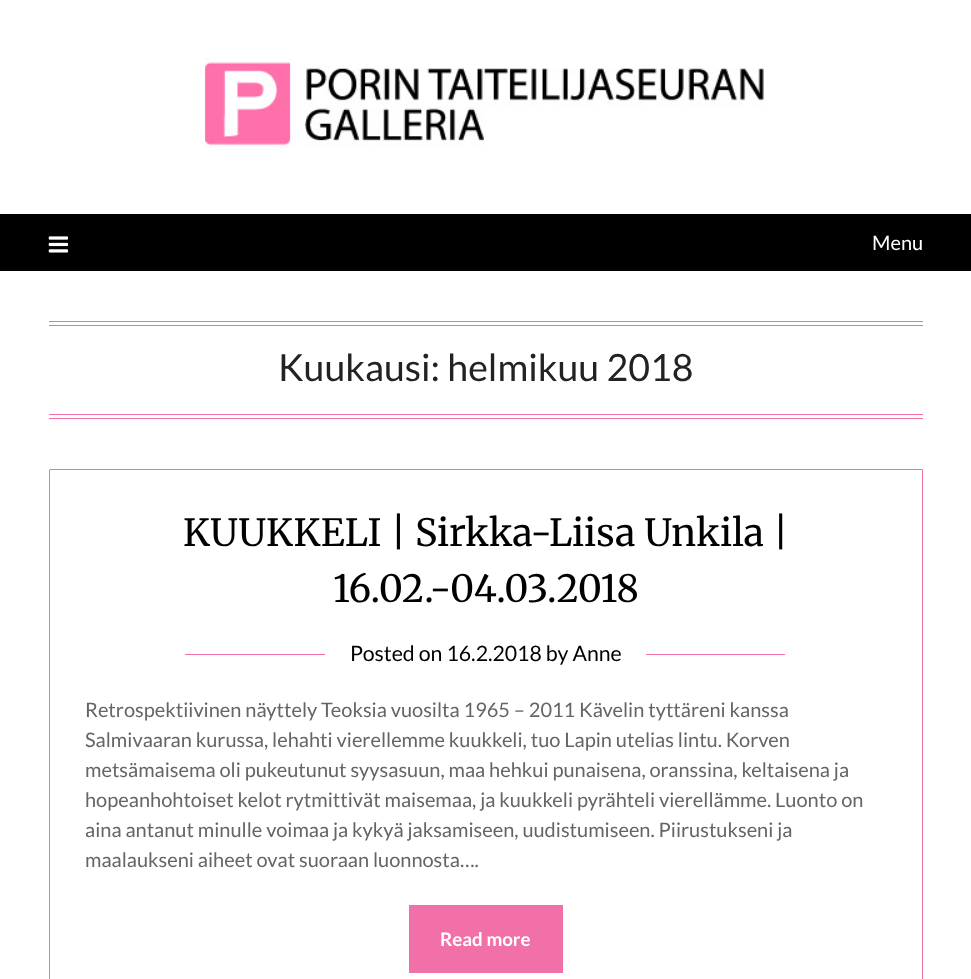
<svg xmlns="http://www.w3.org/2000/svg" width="971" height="979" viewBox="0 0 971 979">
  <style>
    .t1 { font: 20px Lato; fill: #fff; }
    .t2 { font: 37.5px Lato; fill: #222; }
    .t3 { font: 37.5px Merriweather; fill: #000; }
    .t4 { font: 21.25px Lato; fill: #000; }
    .t5 { font: 20px Lato; fill: #656565; }
    .t6 { font: bold 18.75px Lato; fill: #fff; }
  </style>
  <rect width="100%" height="100%" fill="#fff"/>
  <image x="204" y="58" width="560" height="90" href="images/1.png"/>
  <rect x="0" y="214" width="971" height="57" fill="#000"/>
  <image x="48" y="236" width="21" height="17" href="images/2.png"/>
  <text x="872" y="250" class="t1">Menu</text>
  <rect x="49" y="321" width="874" height="1" fill="#f170a8"/>
  <rect x="49" y="325" width="874" height="1" fill="#f170a8"/>
  <rect x="49" y="414" width="874" height="1" fill="#f170a8"/>
  <rect x="49" y="418" width="874" height="1" fill="#f170a8"/>
  <text x="278" y="381" class="t2">Kuukausi: helmikuu 2018</text>
  <rect x="49.5" y="469.5" width="873" height="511" rx="0.5" fill="none" stroke="#f170a8"/>
  <text x="183" y="546" class="t3">KUUKKELI | Sirkka-Liisa Unkila |</text>
  <text x="333" y="602" class="t3">16.02.-04.03.2018</text>
  <rect x="185" y="654" width="600" height="1" fill="#f170a8"/>
  <rect x="325" y="654" width="321" height="1" fill="#fff"/>
  <text x="350" y="661" class="t4">Posted on 16.2.2018 by Anne</text>
  <text x="85" y="717" class="t5">Retrospektiivinen näyttely Teoksia vuosilta 1965 – 2011 Kävelin tyttäreni kanssa</text>
  <text x="85" y="747" class="t5">Salmivaaran kurussa, lehahti vierellemme kuukkeli, tuo Lapin utelias lintu. Korven</text>
  <text x="85" y="777" class="t5">metsämaisema oli pukeutunut syysasuun, maa hehkui punaisena, oranssina, keltaisena ja</text>
  <text x="85" y="807" class="t5">hopeanhohtoiset kelot rytmittivät maisemaa, ja kuukkeli pyrähteli vierellämme. Luonto on</text>
  <text x="85" y="837" class="t5">aina antanut minulle voimaa ja kykyä jaksamiseen, uudistumiseen. Piirustukseni ja</text>
  <text x="85" y="867" class="t5">maalaukseni aiheet ovat suoraan luonnosta….</text>
  <rect x="409" y="905" width="154" height="68" fill="#f170a8"/>
  <text x="440" y="946" class="t6">Read more</text>
</svg>
